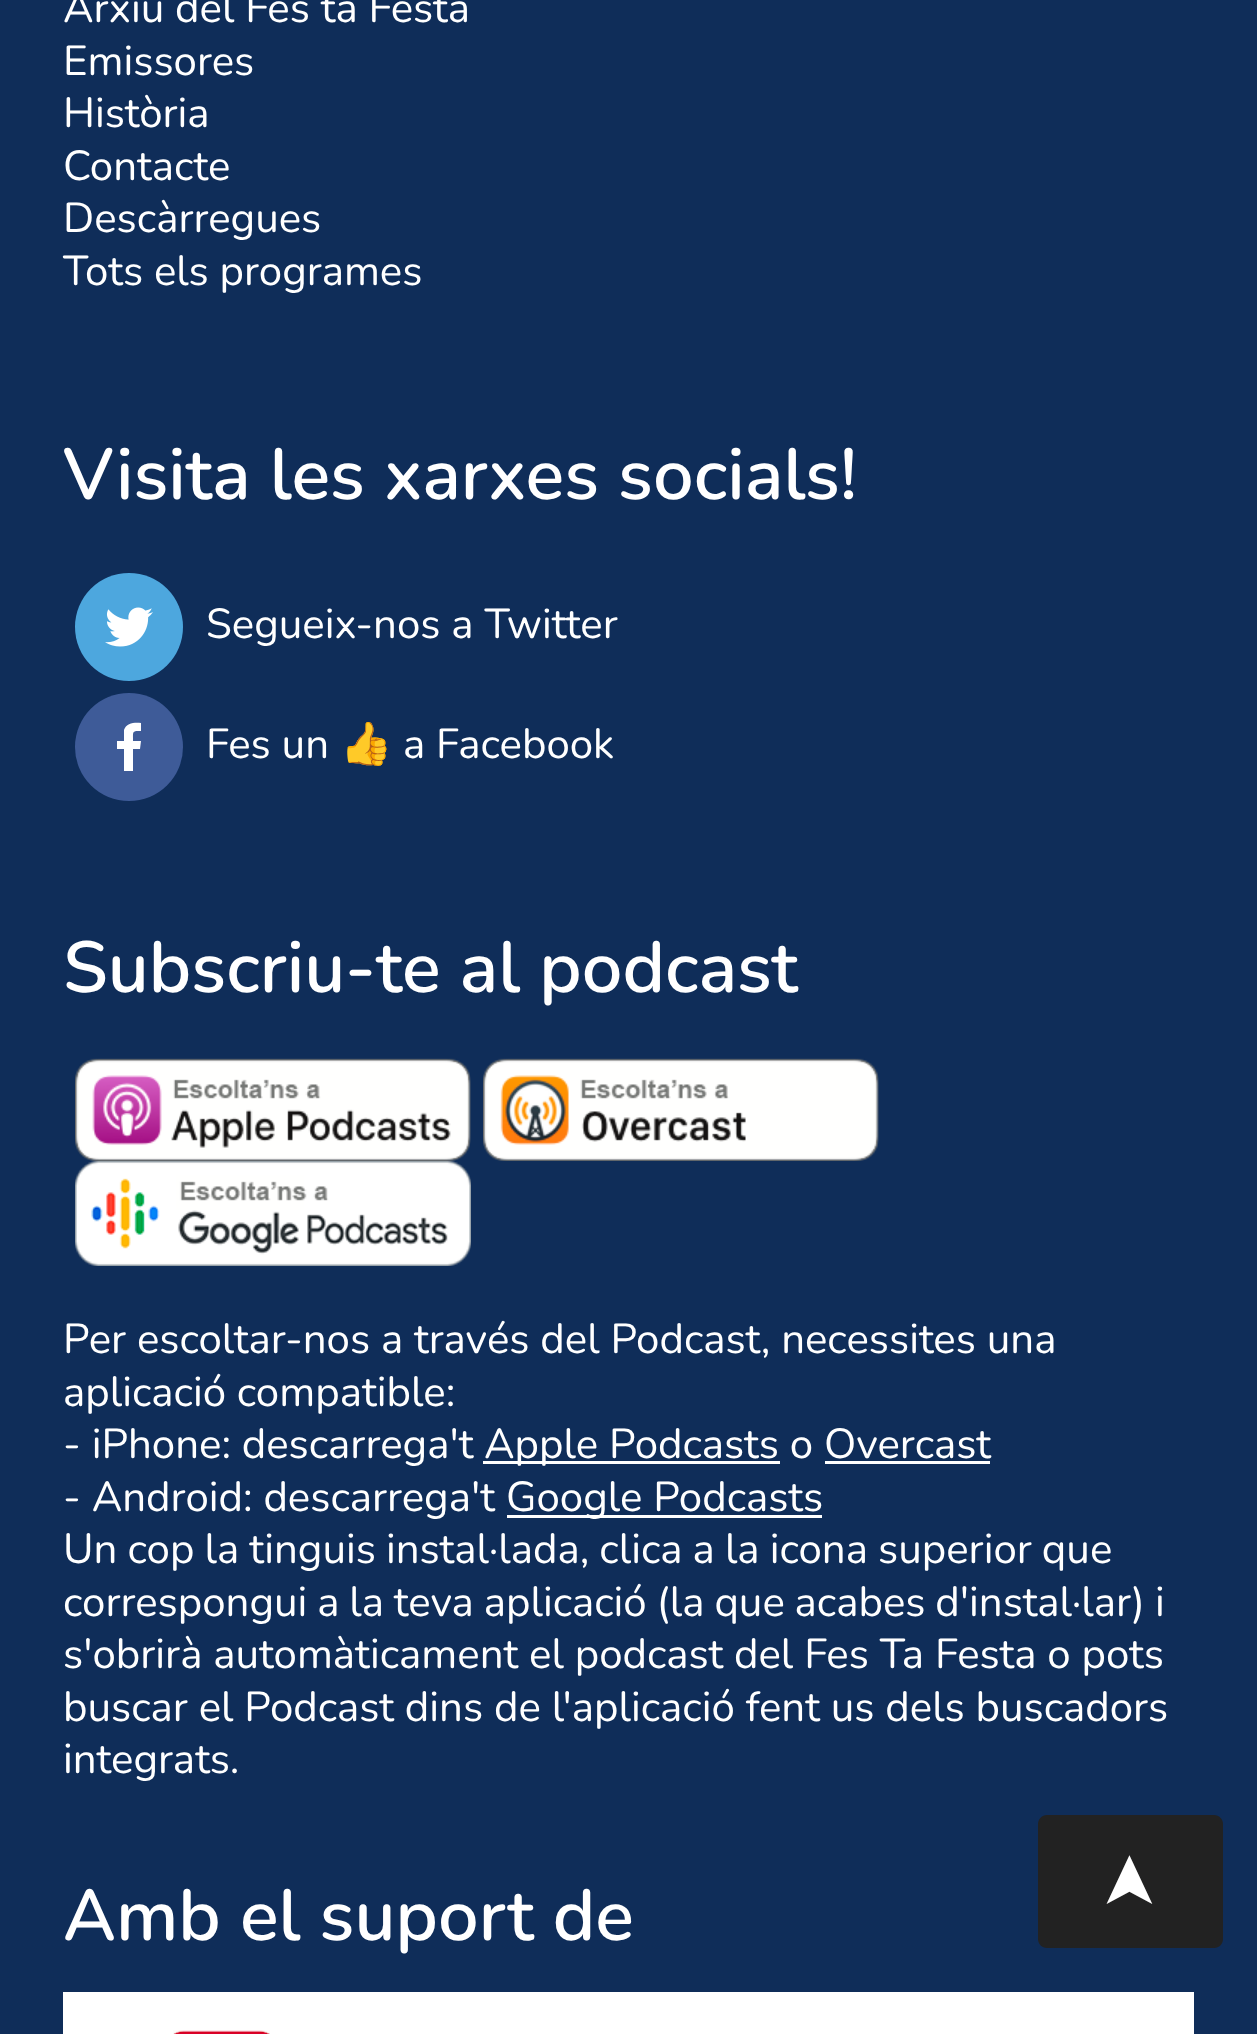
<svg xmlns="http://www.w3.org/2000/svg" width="1257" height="2034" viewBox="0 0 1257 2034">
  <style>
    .t1 { font: 42px Nunito; fill: #fff; }
    .t2 { font: 600 72px Nunito; fill: #fff; }
    .t3 { font: 42px Noto Color Emoji; fill: #fff; }
    .t4 { font: 72px DejaVu Sans; fill: #fff; }
  </style>
  <rect width="100%" height="100%" fill="#0f2d59"/>
  <text x="63" y="22" class="t1">Arxiu del Fes ta Festa</text>
  <text x="63" y="75" class="t1">Emissores</text>
  <text x="63" y="127" class="t1">Història</text>
  <text x="63" y="180" class="t1">Contacte</text>
  <text x="63" y="232" class="t1">Descàrregues</text>
  <text x="63" y="285" class="t1">Tots els programes</text>
  <text x="63" y="499" class="t2">Visita les xarxes socials!</text>
  <circle cx="129" cy="627" r="54" fill="#4da7de"/>
  <image x="105" y="607" width="48" height="40" href="images/1.png"/>
  <text x="206" y="638" class="t1">Segueix-nos a Twitter</text>
  <circle cx="129" cy="747" r="54" fill="#3e5b98"/>
  <path d="M133 771V749H140L141 741H133C133 731 132 731 141 731V723C135 722 126 723 124 730V741H117V749H124V771Z" fill="#fff"/>
  <text x="206" y="758" class="t1">Fes un</text>
  <text x="340" y="758" class="t3">👍</text>
  <text x="403" y="758" class="t1">a Facebook</text>
  <text x="63" y="992" class="t2">Subscriu-te al podcast</text>
  <image x="75" y="1058" width="396" height="103" href="images/2.png"/>
  <image x="483" y="1058" width="396" height="103" href="images/3.png"/>
  <image x="75" y="1161" width="396" height="105" href="images/4.png"/>
  <text x="63" y="1353" class="t1">Per escoltar-nos a través del Podcast, necessites una</text>
  <text x="63" y="1406" class="t1">aplicació compatible:</text>
  <text x="63" y="1458" class="t1">- iPhone: descarrega't</text>
  <rect x="483" y="1461" width="297" height="3" fill="#fff"/>
  <text x="484" y="1458" class="t1">Apple Podcasts o Overcast</text>
  <rect x="825" y="1461" width="165" height="3" fill="#fff"/>
  <text x="63" y="1511" class="t1">- Android: descarrega't</text>
  <rect x="507" y="1515" width="315" height="3" fill="#fff"/>
  <text x="506" y="1511" class="t1">Google Podcasts</text>
  <text x="63" y="1563" word-spacing="-0.75" class="t1">Un cop la tinguis instal·lada, clica a la icona superior que</text>
  <text x="63" y="1616" word-spacing="-1" class="t1">correspongui a la teva aplicació (la que acabes d'instal·lar) i</text>
  <text x="63" y="1668" class="t1">s'obrirà automàticament el podcast del Fes Ta Festa o pots</text>
  <text x="63" y="1721" class="t1">buscar el Podcast dins de l'aplicació fent us dels buscadors</text>
  <text x="63" y="1773" class="t1">integrats.</text>
  <text x="63" y="1940" class="t2">Amb el suport de</text>
  <rect x="63" y="1992" width="1131" height="42" fill="#fff"/>
  <image x="173" y="2030" width="97" height="4" href="images/5.png"/>
  <path d="M1038 1939V1824C1038 1819 1042 1815 1047 1815H1214C1219 1815 1223 1819 1223 1824V1939C1223 1944 1219 1948 1214 1948H1047C1042 1948 1038 1944 1038 1939Z" fill="#222"/>
  <text x="1152" y="1912" transform="rotate(-90 1152 1912)" class="t4">➤</text>
</svg>
